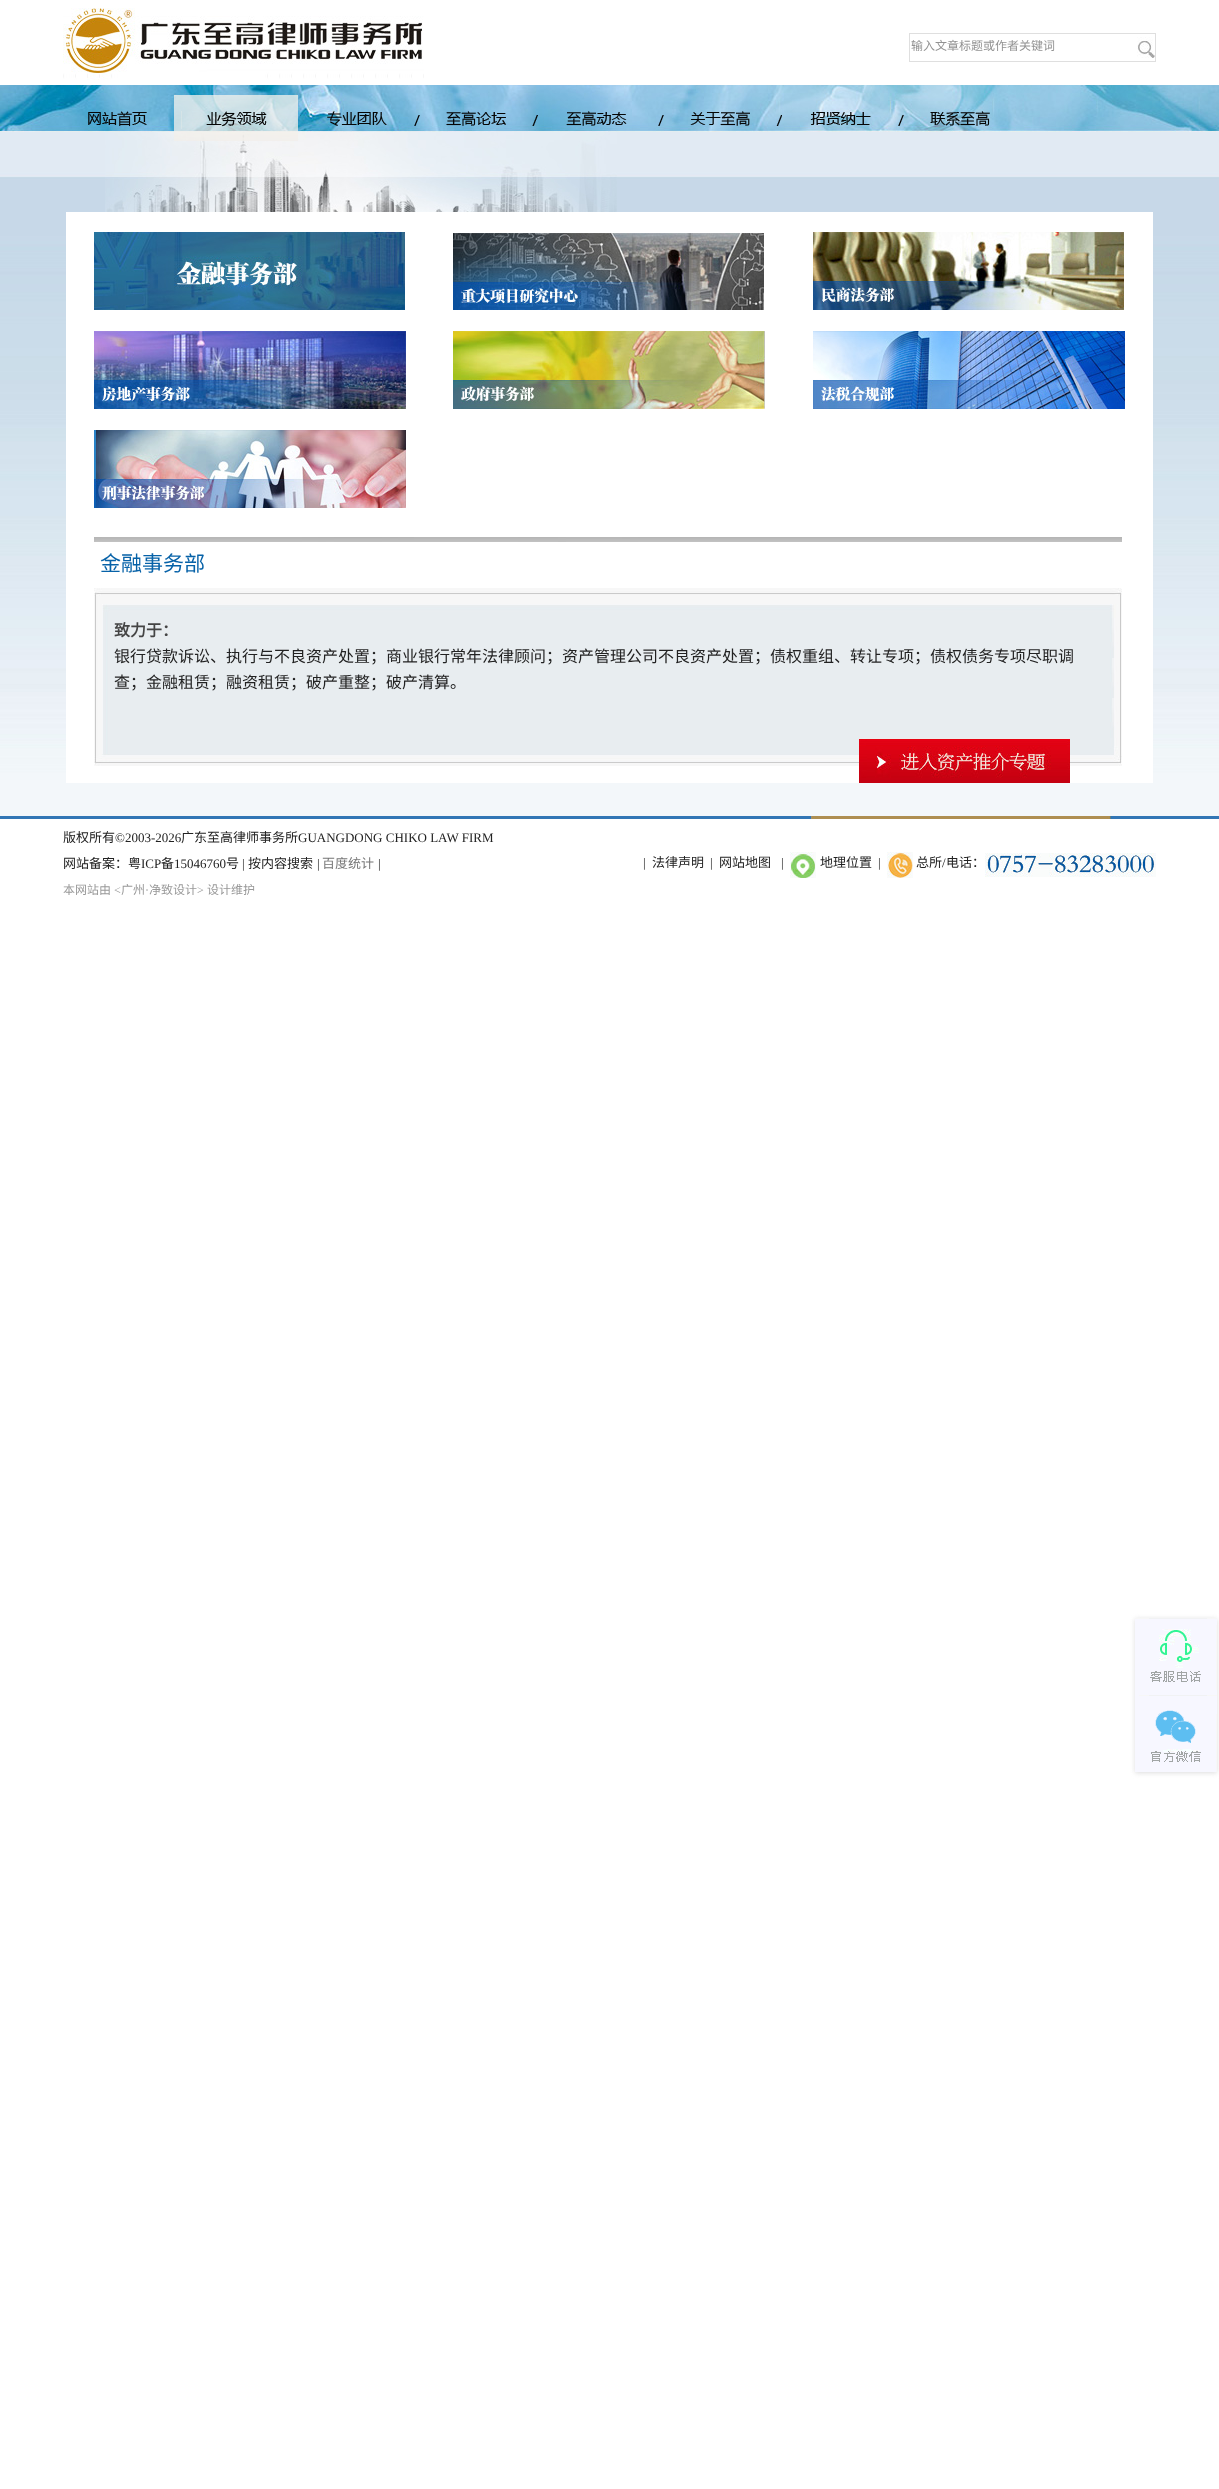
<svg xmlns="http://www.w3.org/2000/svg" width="1219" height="2489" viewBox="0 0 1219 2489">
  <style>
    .t1 { font: 12px Noto Sans CJK SC; fill: #929292; }
    .t2 { font: 21px Noto Sans CJK SC; fill: #0762a8; }
    .t3 { font: bold 16px Noto Sans CJK SC; fill: #444; }
    .t4 { font: 16px Noto Sans CJK SC; fill: #222; }
    .t5 { font: 13px Noto Sans CJK SC; fill: #222; }
    .t6 { font: 13px Liberation Serif; fill: #222; }
    .t7 { font: 13px Noto Sans CJK SC; fill: #777; }
    .t8 { font: 12px Noto Sans CJK SC; fill: #999; }
    .t9 { font: 12px Liberation Serif; fill: #999; }
  </style>
  <rect width="100%" height="100%" fill="#fff"/>
  <image x="63" y="8" width="361" height="72" href="images/1.png"/>
  <rect x="909" y="33" width="247" height="29" fill="#dfdfdf"/>
  <rect x="910" y="34" width="245" height="27" fill="#fff"/>
  <text x="911" y="50" class="t1">输入文章标题或作者关键词</text>
  <image x="1137" y="37" width="18" height="21" href="images/2.png"/>
  <image x="0" y="85" width="1219" height="47" href="images/3.png"/>
  <image x="88" y="111" width="59" height="16" href="images/4.png"/>
  <image x="0" y="132" width="1219" height="684" href="images/12.png"/>
  <image x="105" y="132" width="512" height="80" href="images/13.png"/>
  <image x="174" y="95" width="124" height="46" href="images/5.png"/>
  <image x="300" y="111" width="87" height="15" href="images/6.png"/>
  <image x="414" y="111" width="124" height="15" href="images/7.png"/>
  <image x="566" y="111" width="61" height="15" href="images/8.png"/>
  <image x="658" y="111" width="124" height="15" href="images/9.png"/>
  <image x="810" y="112" width="61" height="13" href="images/10.png"/>
  <image x="898" y="111" width="92" height="15" href="images/11.png"/>
  <rect x="66" y="212" width="1087" height="571" fill="#fff"/>
  <image x="94" y="232" width="311" height="78" href="images/14.png"/>
  <image x="453" y="233" width="311" height="77" href="images/15.png"/>
  <image x="813" y="232" width="311" height="78" href="images/16.png"/>
  <image x="94" y="331" width="312" height="78" href="images/17.png"/>
  <image x="453" y="331" width="312" height="78" href="images/18.png"/>
  <image x="813" y="331" width="312" height="78" href="images/19.png"/>
  <image x="94" y="430" width="312" height="78" href="images/20.png"/>
  <image x="94" y="537" width="1028" height="5" href="images/21.png"/>
  <text x="100" y="571" class="t2">金融事务部</text>
  <image x="94" y="588" width="1028" height="30" href="images/22.png"/>
  <image x="94" y="618" width="1028" height="120" href="images/23.png"/>
  <text x="114" y="636" class="t3">致力于：</text>
  <text x="114" y="662" class="t4">银行贷款诉讼、执行与不良资产处置；商业银行常年法律顾问；资产管理公司不良资产处置；债权重组、转让专项；债权债务专项尽职调</text>
  <text x="114" y="688" class="t4">查；金融租赁；融资租赁；破产重整；破产清算。</text>
  <image x="94" y="738" width="1028" height="28" href="images/24.png"/>
  <image x="859" y="738" width="211" height="45" href="images/25.png"/>
  <rect x="0" y="816" width="1219" height="3" fill="#3276b5"/>
  <image x="811" y="816" width="301" height="3" href="images/26.png"/>
  <text x="63" y="842" class="t5">版权所有</text>
  <text x="115" y="842" class="t6">©2003-2026</text>
  <text x="181" y="842" class="t5">广东至高律师事务所</text>
  <text x="298" y="842" class="t6">GUANGDONG CHIKO LAW FIRM</text>
  <text x="63" y="868" class="t5">网站备案：粤</text>
  <text x="141" y="868" class="t6">ICP</text>
  <text x="161" y="868" class="t5">备</text>
  <text x="174" y="868" class="t6">15046760</text>
  <text x="226" y="868" class="t5">号</text>
  <text x="242" y="868" class="t6">|</text>
  <text x="248" y="868" class="t5">按内容搜索</text>
  <text x="317" y="868" class="t6">|</text>
  <text x="322" y="868" class="t7">百度统计</text>
  <text x="378" y="868" class="t6">|</text>
  <text x="63" y="894" class="t8">本网站由</text>
  <text x="114" y="894" class="t9">&lt;</text>
  <text x="121" y="894" class="t8">广州</text>
  <text x="145" y="894" class="t9">·</text>
  <text x="149" y="894" class="t8">净致设计</text>
  <text x="197" y="894" class="t9">&gt;</text>
  <text x="207" y="894" class="t8">设计维护</text>
  <text x="643" y="867" class="t6">|</text>
  <text x="652" y="867" class="t5">法律声明</text>
  <text x="710" y="867" class="t6">|</text>
  <text x="719" y="867" class="t5">网站地图</text>
  <text x="781" y="867" class="t6">|</text>
  <image x="790" y="852" width="26" height="26" href="images/27.png"/>
  <text x="820" y="867" class="t5">地理位置</text>
  <text x="878" y="867" class="t6">|</text>
  <image x="887" y="852" width="26" height="26" href="images/28.png"/>
  <text x="916" y="867" class="t5">总所</text>
  <text x="942" y="867" class="t6">/</text>
  <text x="946" y="867" class="t5">电话：</text>
  <image x="985" y="853" width="171" height="24" href="images/29.png"/>
  <rect x="1135" y="1619" width="82" height="154" fill="#ddd" filter="blur(2.5px)"/>
  <image x="1135" y="1618" width="82" height="76" href="images/30.png"/>
  <image x="1135" y="1694" width="82" height="78" href="images/31.png"/>
</svg>
